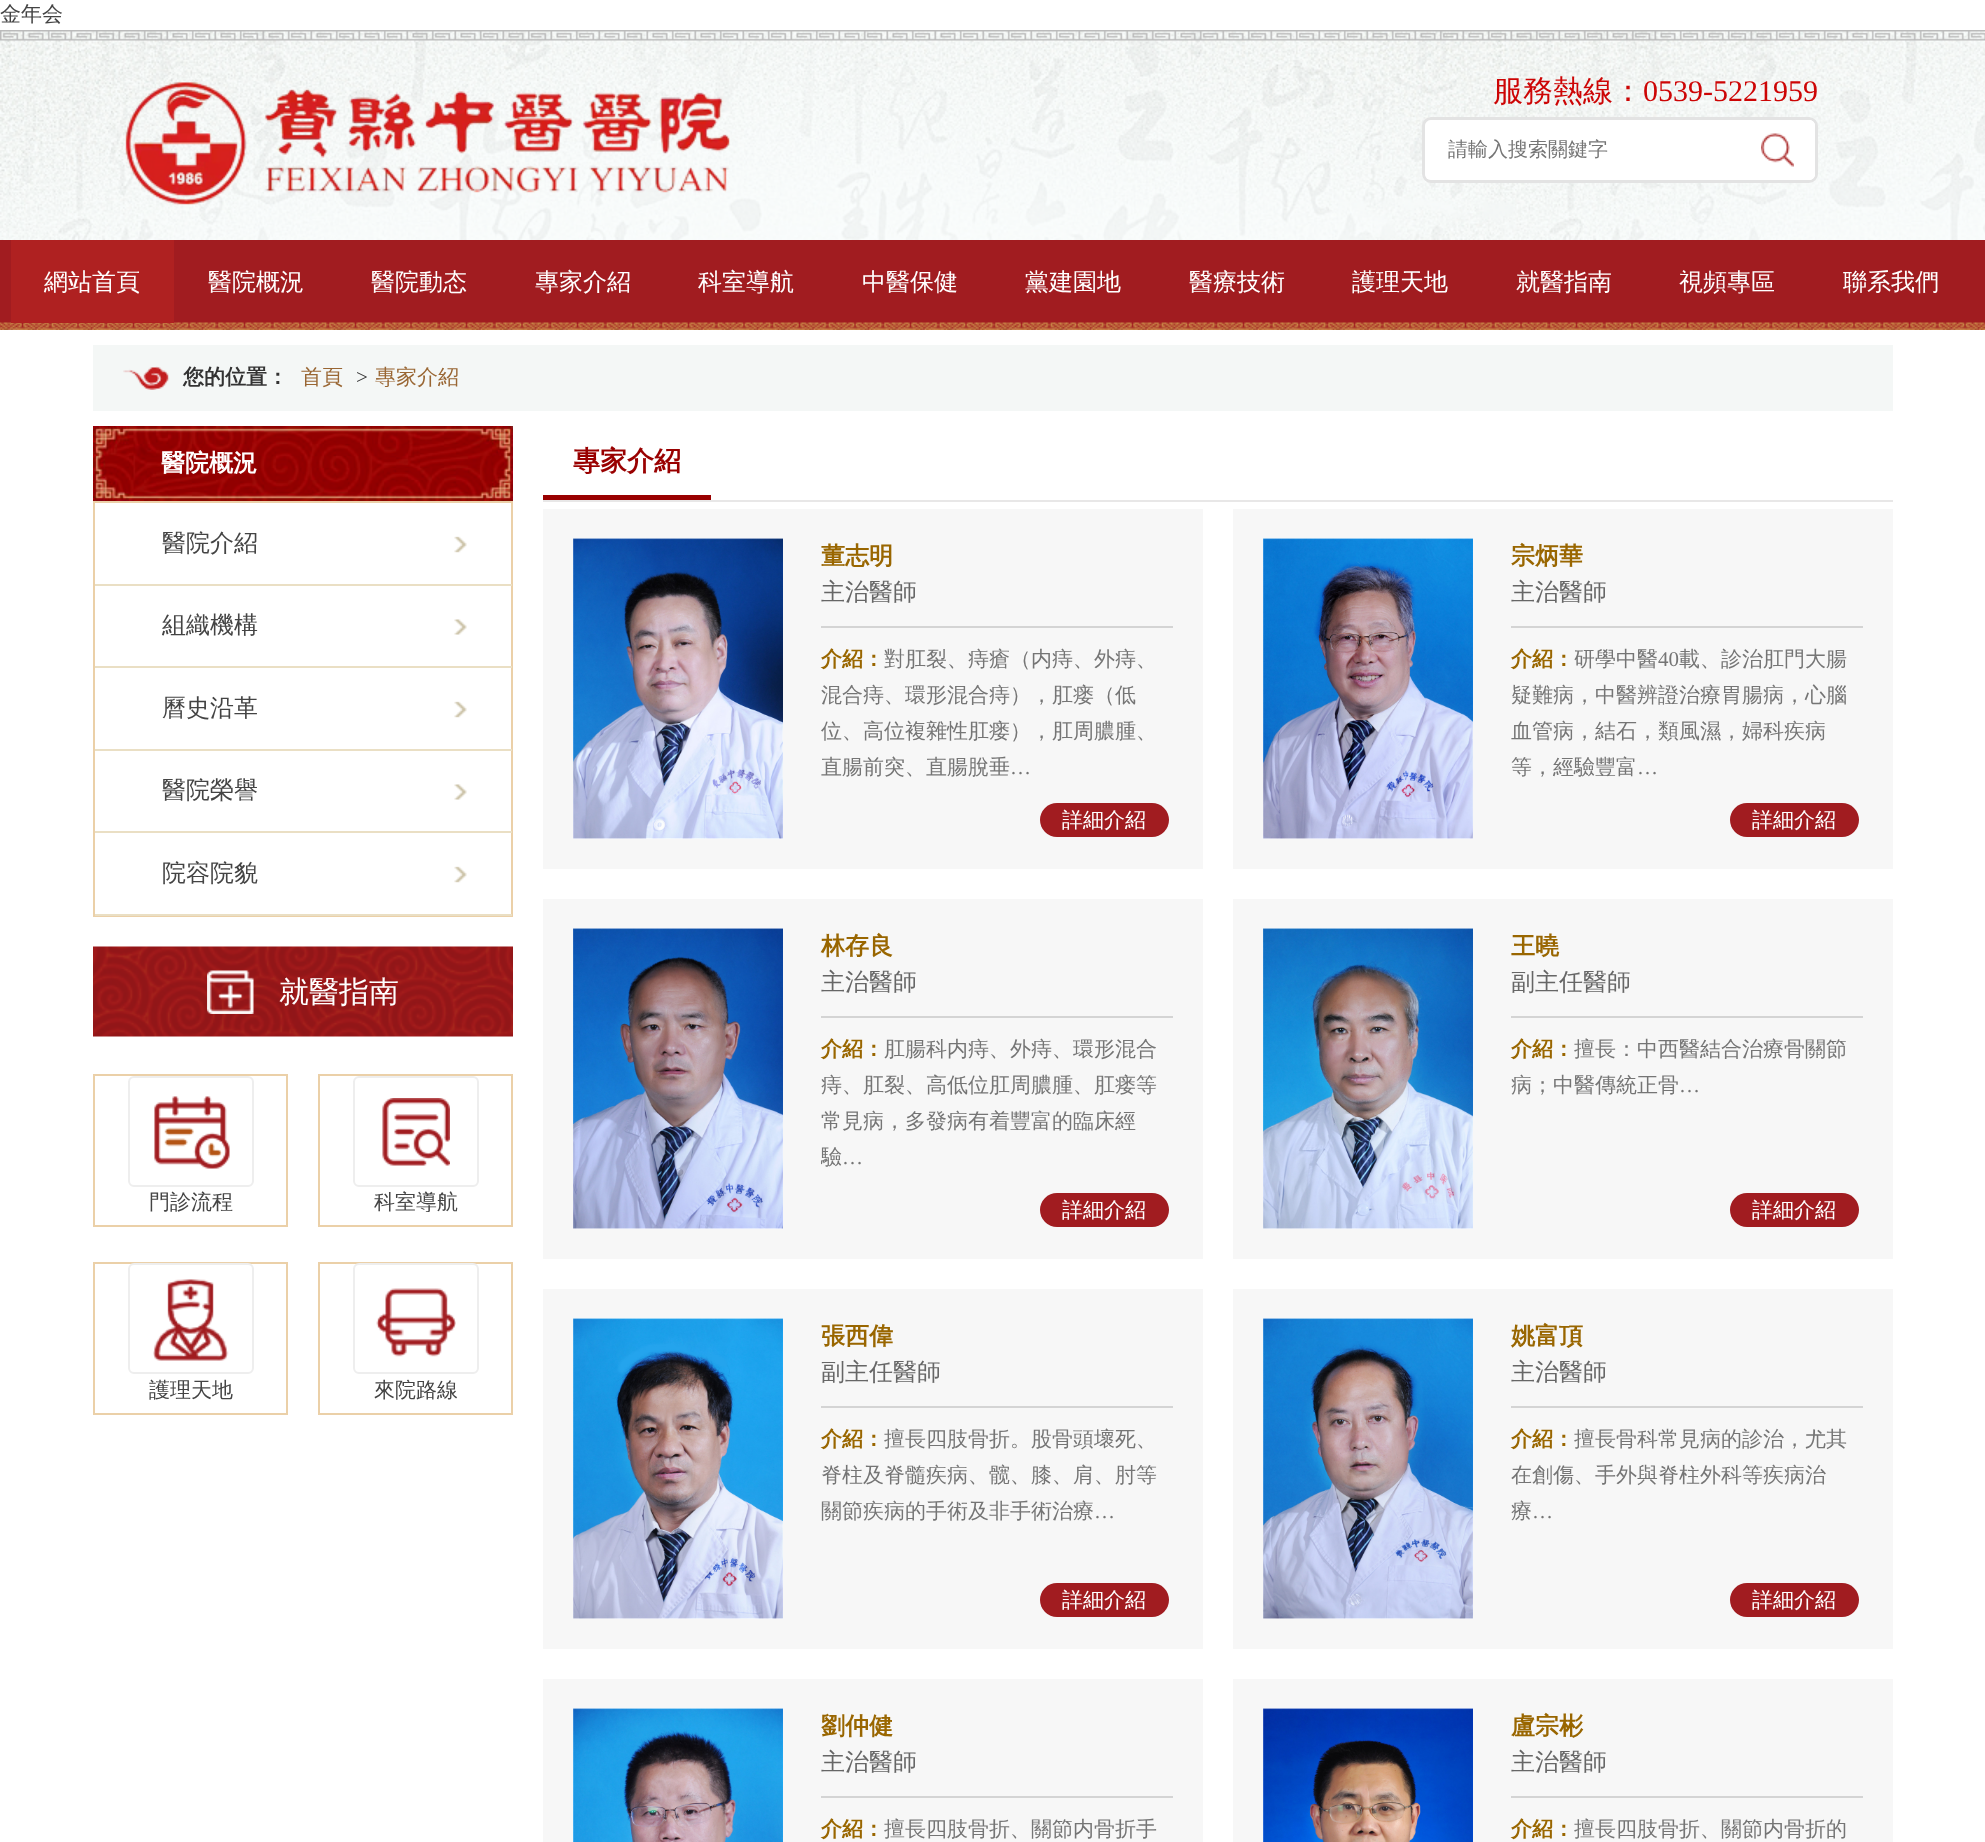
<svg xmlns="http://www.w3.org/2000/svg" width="1985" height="1842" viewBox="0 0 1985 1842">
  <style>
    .t1 { font: 500 21px WenQuanYi Zen Hei; fill: #444; }
    .t2 { font: 500 30px WenQuanYi Zen Hei; fill: #cd0505; }
    .t3 { font: 30px Liberation Serif; fill: #cd0505; }
    .t4 { font: 500 20px WenQuanYi Zen Hei; fill: #757575; }
    .t5 { font: 500 24px WenQuanYi Zen Hei; fill: #fff; }
    .t6 { font: bold 21px WenQuanYi Zen Hei; fill: #333; }
    .t7 { font: 500 21px WenQuanYi Zen Hei; fill: #963; }
    .t8 { font: 21px Liberation Serif; fill: #333; }
    .t9 { font: bold 24px WenQuanYi Zen Hei; fill: #fff; }
    .t10 { font: 500 24px WenQuanYi Zen Hei; fill: #444; }
    .t11 { font: 500 30px WenQuanYi Zen Hei; fill: #fff; }
    .t12 { font: bold 27px WenQuanYi Zen Hei; fill: #900; }
    .t13 { font: bold 24px WenQuanYi Zen Hei; fill: #960; }
    .t14 { font: 500 24px WenQuanYi Zen Hei; fill: #666; }
    .t15 { font: bold 21px WenQuanYi Zen Hei; fill: #960; }
    .t16 { font: 500 21px WenQuanYi Zen Hei; fill: #757575; }
    .t17 { font: 21px Liberation Serif; fill: #757575; }
    .t18 { font: 500 21px WenQuanYi Zen Hei; fill: #fff; }
  </style>
  <defs>
    <clipPath id="clip1"><rect x="821" y="929" width="352" height="247"/></clipPath>
  </defs>
  <rect width="100%" height="100%" fill="#fff"/>
  <text x="0" y="21" class="t1">金年会</text>
  <image x="0" y="30" width="1985" height="210" href="images/1.png"/>
  <image x="125" y="82" width="605" height="123" href="images/2.png"/>
  <text x="1493" y="101" class="t2">服務熱線：</text>
  <text x="1643" y="101" class="t3">0539-5221959</text>
  <rect x="1423.5" y="118.5" width="393" height="63" rx="7.5" fill="none" stroke="#e3e3e3" stroke-width="3"/>
  <rect x="1425" y="120" width="390" height="60" rx="6" fill="#fff"/>
  <text x="1448" y="156" class="t4">請輸入搜索關鍵字</text>
  <path d="M1740 120H1809C1812.5 120 1815 122.5 1815 126V174C1815 177.5 1812.5 180 1809 180H1740Z" fill="#fff"/>
  <image x="1761" y="133" width="33" height="34" href="images/3.png"/>
  <rect x="0" y="240" width="1985" height="83" fill="#a11c20"/>
  <image x="0" y="322" width="1985" height="8" href="images/4.png"/>
  <rect x="11" y="240" width="163" height="83" fill="#af2121"/>
  <text x="44" y="290" class="t5">網站首頁</text>
  <text x="208" y="290" class="t5">醫院概況</text>
  <text x="371" y="290" class="t5">醫院動态</text>
  <text x="535" y="290" class="t5">專家介紹</text>
  <text x="698" y="290" class="t5">科室導航</text>
  <text x="862" y="290" class="t5">中醫保健</text>
  <text x="1025" y="290" class="t5">黨建園地</text>
  <text x="1189" y="290" class="t5">醫療技術</text>
  <text x="1352" y="290" class="t5">護理天地</text>
  <text x="1516" y="290" class="t5">就醫指南</text>
  <text x="1679" y="290" class="t5">視頻專區</text>
  <text x="1843" y="290" class="t5">聯系我們</text>
  <rect x="93" y="345" width="1800" height="66" fill="#f4f7f6"/>
  <image x="123" y="366" width="47" height="24" href="images/5.png"/>
  <text x="183" y="384" class="t6">您的位置：</text>
  <text x="301" y="384" class="t7">首頁</text>
  <text x="356" y="384" class="t8">&gt;</text>
  <text x="375" y="384" class="t7">專家介紹</text>
  <image x="93" y="426" width="420" height="75" href="images/6.png"/>
  <text x="161" y="471" class="t9">醫院概況</text>
  <rect x="94" y="502" width="418" height="414" fill="none" stroke="#ebd0a8" stroke-width="2"/>
  <rect x="95" y="584" width="417" height="2" fill="#eadfc4"/>
  <image x="454" y="536" width="13" height="17" href="images/7.png"/>
  <text x="162" y="551" class="t10">醫院介紹</text>
  <rect x="95" y="666" width="417" height="2" fill="#eadfc4"/>
  <image x="454" y="619" width="13" height="16" href="images/8.png"/>
  <text x="162" y="633" class="t10">組織機構</text>
  <rect x="95" y="749" width="417" height="2" fill="#eadfc4"/>
  <image x="454" y="701" width="13" height="17" href="images/7.png"/>
  <text x="162" y="716" class="t10">曆史沿革</text>
  <rect x="95" y="831" width="417" height="2" fill="#eadfc4"/>
  <image x="454" y="784" width="13" height="16" href="images/8.png"/>
  <text x="162" y="798" class="t10">醫院榮譽</text>
  <rect x="95" y="914" width="417" height="2" fill="#eadfc4"/>
  <image x="454" y="866" width="13" height="17" href="images/7.png"/>
  <text x="162" y="881" class="t10">院容院貌</text>
  <image x="93" y="946" width="420" height="91" href="images/9.png"/>
  <image x="207" y="970" width="47" height="44" href="images/10.png"/>
  <text x="279" y="1002" class="t11">就醫指南</text>
  <rect x="94" y="1075" width="193" height="151" fill="none" stroke="#ebd0a8" stroke-width="2"/>
  <image x="154" y="1096" width="76" height="73" href="images/11.png"/>
  <rect x="129" y="1077" width="124" height="109" rx="5" fill="none" stroke="#eee" stroke-width="2"/>
  <text x="149" y="1209" class="t1">門診流程</text>
  <rect x="319" y="1075" width="193" height="151" fill="none" stroke="#ebd0a8" stroke-width="2"/>
  <image x="382" y="1098" width="68" height="68" href="images/12.png"/>
  <rect x="354" y="1077" width="124" height="109" rx="5" fill="none" stroke="#eee" stroke-width="2"/>
  <text x="374" y="1209" class="t1">科室導航</text>
  <rect x="94" y="1263" width="193" height="151" fill="none" stroke="#ebd0a8" stroke-width="2"/>
  <image x="153" y="1279" width="76" height="82" href="images/13.png"/>
  <rect x="129" y="1264" width="124" height="109" rx="5" fill="none" stroke="#eee" stroke-width="2"/>
  <text x="149" y="1397" class="t1">護理天地</text>
  <rect x="319" y="1263" width="193" height="151" fill="none" stroke="#ebd0a8" stroke-width="2"/>
  <image x="376" y="1288" width="80" height="69" href="images/14.png"/>
  <rect x="354" y="1264" width="124" height="109" rx="5" fill="none" stroke="#eee" stroke-width="2"/>
  <text x="374" y="1397" class="t1">來院路線</text>
  <rect x="543" y="500" width="1350" height="2" fill="#e8e7e7"/>
  <rect x="543" y="495" width="168" height="5" fill="#900"/>
  <text x="573" y="470" class="t12">專家介紹</text>
  <rect x="543" y="509" width="660" height="360" fill="#f7f7f7"/>
  <rect x="573" y="838" width="210" height="1" fill="#fff"/>
  <image x="573" y="538" width="210" height="301" href="images/15.png"/>
  <text x="821" y="564" class="t13">董志明</text>
  <text x="821" y="600" class="t14">主治醫師</text>
  <rect x="821" y="626" width="352" height="2" fill="#d4d4d4"/>
  <text x="821" y="666" class="t15">介紹：</text>
  <text x="884" y="666" class="t16">對肛裂、痔瘡（内痔、外痔、</text>
  <text x="821" y="702" class="t16">混合痔、環形混合痔），肛瘘（低</text>
  <text x="821" y="738" class="t16">位、高位複雜性肛瘘），肛周膿腫、</text>
  <text x="821" y="774" class="t16">直腸前突、直腸脫垂</text>
  <text x="1010" y="774" class="t17">…</text>
  <rect x="1040" y="803" width="129" height="34" rx="17" fill="#a11c20"/>
  <text x="1062" y="827" class="t18">詳細介紹</text>
  <rect x="1233" y="509" width="660" height="360" fill="#f7f7f7"/>
  <rect x="1263" y="838" width="210" height="1" fill="#fff"/>
  <image x="1263" y="538" width="210" height="301" href="images/16.png"/>
  <text x="1511" y="564" class="t13">宗炳華</text>
  <text x="1511" y="600" class="t14">主治醫師</text>
  <rect x="1511" y="626" width="352" height="2" fill="#d4d4d4"/>
  <text x="1511" y="666" class="t15">介紹：</text>
  <text x="1574" y="666" class="t16">研學中醫</text>
  <text x="1658" y="666" class="t17">40</text>
  <text x="1679" y="666" class="t16">載、診治肛門大腸</text>
  <text x="1511" y="702" class="t16">疑難病，中醫辨證治療胃腸病，心腦</text>
  <text x="1511" y="738" class="t16">血管病，結石，類風濕，婦科疾病</text>
  <text x="1511" y="774" class="t16">等，經驗豐富</text>
  <text x="1637" y="774" class="t17">…</text>
  <rect x="1730" y="803" width="129" height="34" rx="17" fill="#a11c20"/>
  <text x="1752" y="827" class="t18">詳細介紹</text>
  <rect x="543" y="899" width="660" height="360" fill="#f7f7f7"/>
  <rect x="573" y="1228" width="210" height="1" fill="#fff"/>
  <image x="573" y="928" width="210" height="301" href="images/17.png"/>
  <text x="821" y="954" class="t13">林存良</text>
  <text x="821" y="990" class="t14">主治醫師</text>
  <rect x="821" y="1016" width="352" height="2" fill="#d4d4d4"/>
  <text x="821" y="1056" class="t15">介紹：</text>
  <text x="884" y="1056" class="t16">肛腸科内痔、外痔、環形混合</text>
  <text x="821" y="1092" class="t16">痔、肛裂、高低位肛周膿腫、肛瘘等</text>
  <text x="821" y="1128" class="t16">常見病，多發病有着豐富的臨床經</text>
  <g clip-path="url(#clip1)">
    <text x="821" y="1164" class="t16">驗</text>
  </g>
  <text x="842" y="1164" class="t17">…</text>
  <rect x="1040" y="1193" width="129" height="34" rx="17" fill="#a11c20"/>
  <text x="1062" y="1217" class="t18">詳細介紹</text>
  <rect x="1233" y="899" width="660" height="360" fill="#f7f7f7"/>
  <rect x="1263" y="1228" width="210" height="1" fill="#fff"/>
  <image x="1263" y="928" width="210" height="301" href="images/18.png"/>
  <text x="1511" y="954" class="t13">王曉</text>
  <text x="1511" y="990" class="t14">副主任醫師</text>
  <rect x="1511" y="1016" width="352" height="2" fill="#d4d4d4"/>
  <text x="1511" y="1056" class="t15">介紹：</text>
  <text x="1574" y="1056" class="t16">擅長：中西醫結合治療骨關節</text>
  <text x="1511" y="1092" class="t16">病；中醫傳統正骨</text>
  <text x="1679" y="1092" class="t17">…</text>
  <rect x="1730" y="1193" width="129" height="34" rx="17" fill="#a11c20"/>
  <text x="1752" y="1217" class="t18">詳細介紹</text>
  <rect x="543" y="1289" width="660" height="360" fill="#f7f7f7"/>
  <rect x="573" y="1618" width="210" height="1" fill="#fff"/>
  <image x="573" y="1318" width="210" height="301" href="images/19.png"/>
  <text x="821" y="1344" class="t13">張西偉</text>
  <text x="821" y="1380" class="t14">副主任醫師</text>
  <rect x="821" y="1406" width="352" height="2" fill="#d4d4d4"/>
  <text x="821" y="1446" class="t15">介紹：</text>
  <text x="884" y="1446" class="t16">擅長四肢骨折。股骨頭壞死、</text>
  <text x="821" y="1482" class="t16">脊柱及脊髓疾病、髋、膝、肩、肘等</text>
  <text x="821" y="1518" class="t16">關節疾病的手術及非手術治療</text>
  <text x="1094" y="1518" class="t17">…</text>
  <rect x="1040" y="1583" width="129" height="34" rx="17" fill="#a11c20"/>
  <text x="1062" y="1607" class="t18">詳細介紹</text>
  <rect x="1233" y="1289" width="660" height="360" fill="#f7f7f7"/>
  <rect x="1263" y="1618" width="210" height="1" fill="#fff"/>
  <image x="1263" y="1318" width="210" height="301" href="images/20.png"/>
  <text x="1511" y="1344" class="t13">姚富頂</text>
  <text x="1511" y="1380" class="t14">主治醫師</text>
  <rect x="1511" y="1406" width="352" height="2" fill="#d4d4d4"/>
  <text x="1511" y="1446" class="t15">介紹：</text>
  <text x="1574" y="1446" class="t16">擅長骨科常見病的診治，尤其</text>
  <text x="1511" y="1482" class="t16">在創傷、手外與脊柱外科等疾病治</text>
  <text x="1511" y="1518" class="t16">療</text>
  <text x="1532" y="1518" class="t17">…</text>
  <rect x="1730" y="1583" width="129" height="34" rx="17" fill="#a11c20"/>
  <text x="1752" y="1607" class="t18">詳細介紹</text>
  <rect x="543" y="1679" width="660" height="163" fill="#f7f7f7"/>
  <image x="573" y="1708" width="210" height="134" href="images/21.png"/>
  <text x="821" y="1734" class="t13">劉仲健</text>
  <text x="821" y="1770" class="t14">主治醫師</text>
  <rect x="821" y="1796" width="352" height="2" fill="#d4d4d4"/>
  <text x="821" y="1836" class="t15">介紹：</text>
  <text x="884" y="1836" class="t16">擅長四肢骨折、關節内骨折手</text>
  <rect x="1233" y="1679" width="660" height="163" fill="#f7f7f7"/>
  <image x="1263" y="1708" width="210" height="134" href="images/22.png"/>
  <text x="1511" y="1734" class="t13">盧宗彬</text>
  <text x="1511" y="1770" class="t14">主治醫師</text>
  <rect x="1511" y="1796" width="352" height="2" fill="#d4d4d4"/>
  <text x="1511" y="1836" class="t15">介紹：</text>
  <text x="1574" y="1836" class="t16">擅長四肢骨折、關節内骨折的</text>
</svg>
